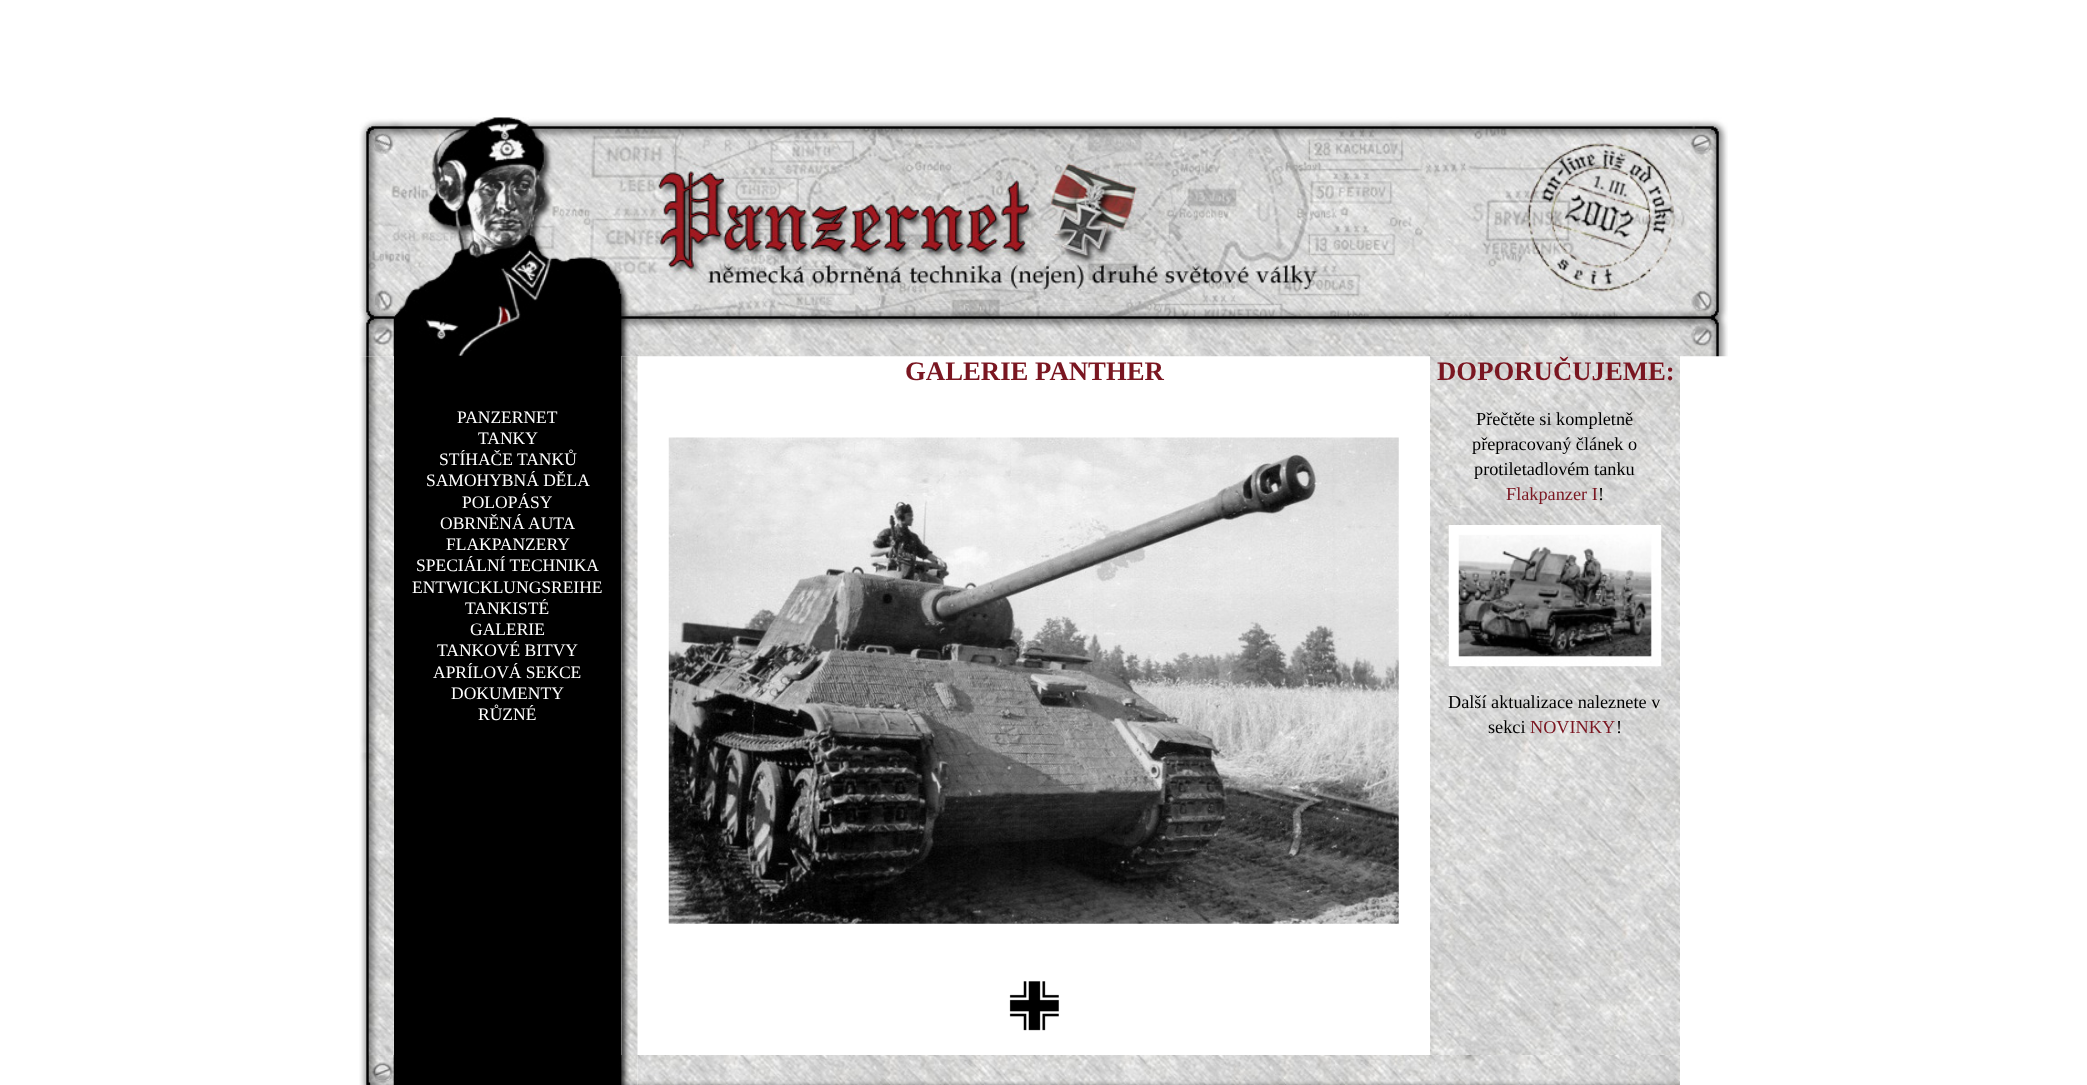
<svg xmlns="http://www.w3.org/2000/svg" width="2087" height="1085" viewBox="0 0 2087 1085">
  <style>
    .t1 { font: bold 26.75px Liberation Serif; fill: #7a1621; }
    .t2 { font: 18.25px Liberation Serif; fill: #000; }
    .t3 { font: 18.25px Liberation Serif; fill: #7a1621; }
    .t4 { font: 17.5px Liberation Serif; fill: #fff; }
  </style>
  <rect width="100%" height="100%" fill="#fff"/>
  <image x="359" y="117" width="1369" height="240" href="images/1.png"/>
  <image x="359" y="356" width="35" height="699" href="images/2.png"/>
  <image x="621" y="356" width="17" height="699" href="images/3.png"/>
  <text x="905" y="380" class="t1">GALERIE PANTHER</text>
  <image x="668" y="437" width="731" height="487" href="images/4.png"/>
  <image x="1009" y="981" width="50" height="50" href="images/5.png"/>
  <image x="1430" y="356" width="250" height="699" href="images/6.png"/>
  <text x="1437" y="380" class="t1">DOPORUČUJEME:</text>
  <text x="1476" y="425" class="t2">Přečtěte si kompletně</text>
  <text x="1472" y="450" class="t2">přepracovaný článek o</text>
  <text x="1474" y="475" class="t2">protiletadlovém tanku</text>
  <text x="1506" y="500" class="t3">Flakpanzer I</text>
  <text x="1598" y="500" class="t2">!</text>
  <image x="1448" y="525" width="214" height="142" href="images/7.png"/>
  <text x="1448" y="708" class="t2">Další aktualizace naleznete v</text>
  <text x="1488" y="733" class="t2">sekci</text>
  <text x="1530" y="733" class="t3">NOVINKY</text>
  <text x="1616" y="733" class="t2">!</text>
  <rect x="394" y="356" width="227" height="699" fill="#000"/>
  <text x="457" y="423" class="t4">PANZERNET</text>
  <text x="478" y="444" class="t4">TANKY</text>
  <text x="439" y="465" class="t4">STÍHAČE TANKŮ</text>
  <text x="426" y="486" class="t4">SAMOHYBNÁ DĚLA</text>
  <text x="462" y="508" class="t4">POLOPÁSY</text>
  <text x="440" y="529" class="t4">OBRNĚNÁ AUTA</text>
  <text x="446" y="550" class="t4">FLAKPANZERY</text>
  <text x="416" y="571" class="t4">SPECIÁLNÍ TECHNIKA</text>
  <text x="412" y="593" class="t4">ENTWICKLUNGSREIHE</text>
  <text x="465" y="614" class="t4">TANKISTÉ</text>
  <text x="470" y="635" class="t4">GALERIE</text>
  <text x="437" y="656" class="t4">TANKOVÉ BITVY</text>
  <text x="433" y="678" class="t4">APRÍLOVÁ SEKCE</text>
  <text x="451" y="699" class="t4">DOKUMENTY</text>
  <text x="478" y="720" class="t4">RŮZNÉ</text>
  <image x="359" y="1055" width="279" height="30" href="images/8.png"/>
  <image x="637" y="1055" width="1043" height="30" href="images/9.png"/>
</svg>
